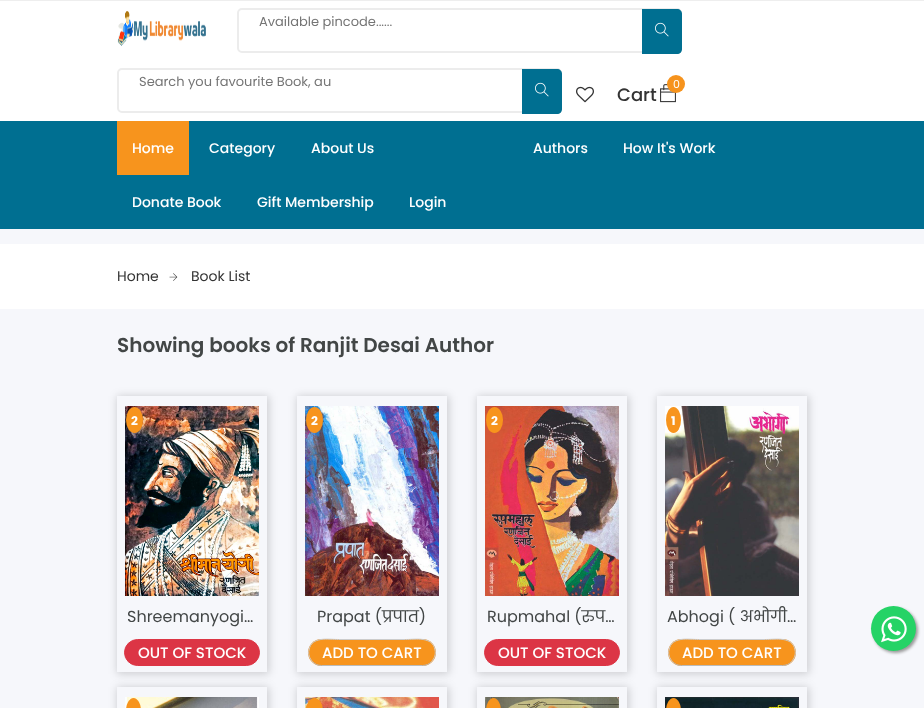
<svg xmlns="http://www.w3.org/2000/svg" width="924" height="708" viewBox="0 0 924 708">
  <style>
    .t1 { font: 13px Poppins; fill: #757575; }
    .t2 { font: 11px Poppins; fill: #fff; }
    .t3 { font: 500 18px Poppins; fill: #333; }
    .t4 { font: 500 14px Poppins; fill: #fff; }
    .t5 { font: 14px Poppins; fill: #333; }
    .t6 { font: 600 20px Poppins; fill: #424646; }
    .t7 { font: bold 12px Poppins; fill: #fff; }
    .t8 { font: 16px Poppins; fill: #424646; }
    .t9 { font: 500 15px Poppins; fill: #fff; }
  </style>
  <defs>
    <clipPath id="clip1"><path d="M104 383H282V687H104ZM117 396H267V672H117Z" clip-rule="evenodd"/></clipPath>
    <clipPath id="clip2"><path d="M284 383H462V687H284ZM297 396H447V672H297Z" clip-rule="evenodd"/></clipPath>
    <clipPath id="clip3"><path d="M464 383H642V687H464ZM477 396H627V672H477Z" clip-rule="evenodd"/></clipPath>
    <clipPath id="clip4"><path d="M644 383H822V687H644ZM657 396H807V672H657Z" clip-rule="evenodd"/></clipPath>
    <clipPath id="clip5"><path d="M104 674H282V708H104ZM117 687H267V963H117Z" clip-rule="evenodd"/></clipPath>
    <clipPath id="clip6"><path d="M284 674H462V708H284ZM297 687H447V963H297Z" clip-rule="evenodd"/></clipPath>
    <clipPath id="clip7"><path d="M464 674H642V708H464ZM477 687H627V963H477Z" clip-rule="evenodd"/></clipPath>
    <clipPath id="clip8"><path d="M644 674H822V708H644ZM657 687H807V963H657Z" clip-rule="evenodd"/></clipPath>
  </defs>
  <rect width="100%" height="100%" fill="#f6f7fb"/>
  <rect x="0" y="1" width="924" height="120" fill="#fff"/>
  <rect x="0" y="0" width="924" height="1" fill="#eee"/>
  <image x="117" y="10" width="89" height="36" href="images/1.png"/>
  <rect x="238" y="9" width="443" height="43" rx="4" fill="none" stroke="#ececec" stroke-width="2"/>
  <text x="259" y="26" class="t1">Available pincode......</text>
  <path d="M642 9H677C680 9 682 11 682 14V49C682 52 680 54 677 54H642Z" fill="#006f91"/>
  <image x="655" y="22" width="14" height="15" href="images/2.png"/>
  <rect x="118" y="69" width="443" height="43" rx="4" fill="none" stroke="#ececec" stroke-width="2"/>
  <text x="139" y="86" class="t1">Search you favourite Book, au</text>
  <path d="M522 69H557C560 69 562 71 562 74V109C562 112 560 114 557 114H522Z" fill="#006f91"/>
  <image x="535" y="82" width="14" height="15" href="images/2.png"/>
  <image x="576" y="86" width="18" height="17" href="images/3.png"/>
  <image x="660" y="84" width="16" height="19" href="images/4.png"/>
  <circle cx="676" cy="84" r="9" fill="#f6931d"/>
  <text x="673" y="88" class="t2">0</text>
  <text x="617" y="101" class="t3">Cart</text>
  <rect x="0" y="121" width="924" height="108" fill="#006f91"/>
  <rect x="117" y="121" width="72" height="54" fill="#f7941d"/>
  <text x="132" y="153" class="t4">Home</text>
  <text x="209" y="153" class="t4">Category</text>
  <text x="311" y="153" class="t4">About Us</text>
  <text x="533" y="153" class="t4">Authors</text>
  <text x="623" y="153" class="t4">How It's Work</text>
  <text x="132" y="207" class="t4">Donate Book</text>
  <text x="257" y="207" class="t4">Gift Membership</text>
  <text x="409" y="207" class="t4">Login</text>
  <rect x="0" y="244" width="924" height="65" fill="#fff"/>
  <text x="117" y="281" class="t5">Home</text>
  <image x="169" y="273" width="9" height="8" href="images/5.png"/>
  <text x="191" y="281" class="t5">Book List</text>
  <text x="117" y="352" class="t6">Showing books of Ranjit Desai Author</text>
  <g clip-path="url(#clip1)">
    <rect x="117" y="396" width="152" height="278" fill="#0000002b" filter="blur(4px)"/>
  </g>
  <image x="125" y="406" width="134" height="190" href="images/6.png"/>
  <ellipse cx="134.5" cy="420" rx="8.5" ry="13" fill="#f7941d"/>
  <text x="131" y="425" class="t7">2</text>
  <text x="127" y="622" class="t8">Shreemanyogi…</text>
  <rect x="124.5" y="639.5" width="135" height="26" rx="13" fill="#dc3545" stroke="#dc3545"/>
  <text x="138" y="658" class="t9">OUT OF STOCK</text>
  <g clip-path="url(#clip2)">
    <rect x="297" y="396" width="152" height="278" fill="#0000002b" filter="blur(4px)"/>
  </g>
  <image x="305" y="406" width="134" height="190" href="images/7.png"/>
  <ellipse cx="314.5" cy="420" rx="8.5" ry="13" fill="#f7941d"/>
  <text x="311" y="425" class="t7">2</text>
  <text x="317" y="622" class="t8">Prapat (प्रपात)</text>
  <rect x="308" y="639" width="128" height="27" rx="13.5" fill="#f7941d"/>
  <path d="M431.5 661.5C429.5 664 426 665.5 422.5 665.5H321.5C318 665.5 314.5 664 312.5 661.5" fill="none" stroke="#bbb"/>
  <path d="M312.5 661.5C309.5 658.5 308 654 309 650C311.5 636 328.5 639.5 338.5 639.5H405.5C415.5 639.5 432.5 636 435 650C436 654 434.5 658.5 431.5 661.5" fill="none" stroke="#ccc"/>
  <text x="322" y="658" class="t9">ADD TO CART</text>
  <g clip-path="url(#clip3)">
    <rect x="477" y="396" width="152" height="278" fill="#0000002b" filter="blur(4px)"/>
  </g>
  <image x="485" y="406" width="134" height="190" href="images/8.png"/>
  <ellipse cx="494.5" cy="420" rx="8.5" ry="13" fill="#f7941d"/>
  <text x="491" y="425" class="t7">2</text>
  <text x="487" y="622" class="t8">Rupmahal (रुप…</text>
  <rect x="484.5" y="639.5" width="135" height="26" rx="13" fill="#dc3545" stroke="#dc3545"/>
  <text x="498" y="658" class="t9">OUT OF STOCK</text>
  <g clip-path="url(#clip4)">
    <rect x="657" y="396" width="152" height="278" fill="#0000002b" filter="blur(4px)"/>
  </g>
  <image x="665" y="406" width="134" height="190" href="images/9.png"/>
  <ellipse cx="673.5" cy="420" rx="7.5" ry="13" fill="#f7941d"/>
  <text x="671" y="425" class="t7">1</text>
  <text x="667" y="622" class="t8">Abhogi ( अभोगी…</text>
  <rect x="668" y="639" width="128" height="27" rx="13.5" fill="#f7941d"/>
  <path d="M791.5 661.5C789.5 664 786 665.5 782.5 665.5H681.5C678 665.5 674.5 664 672.5 661.5" fill="none" stroke="#bbb"/>
  <path d="M672.5 661.5C669.5 658.5 668 654 669 650C671.5 636 688.5 639.5 698.5 639.5H765.5C775.5 639.5 792.5 636 795 650C796 654 794.5 658.5 791.5 661.5" fill="none" stroke="#ccc"/>
  <text x="682" y="658" class="t9">ADD TO CART</text>
  <g clip-path="url(#clip5)">
    <rect x="117" y="687" width="152" height="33" fill="#0000002b" filter="blur(4px)"/>
  </g>
  <image x="125" y="697" width="134" height="11" href="images/10.png"/>
  <ellipse cx="133.5" cy="711" rx="7.5" ry="13" fill="#f7941d"/>
  <g clip-path="url(#clip6)">
    <rect x="297" y="687" width="152" height="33" fill="#0000002b" filter="blur(4px)"/>
  </g>
  <image x="305" y="697" width="134" height="11" href="images/11.png"/>
  <ellipse cx="314.5" cy="711" rx="8.5" ry="13" fill="#f7941d"/>
  <g clip-path="url(#clip7)">
    <rect x="477" y="687" width="152" height="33" fill="#0000002b" filter="blur(4px)"/>
  </g>
  <image x="485" y="697" width="134" height="11" href="images/12.png"/>
  <ellipse cx="493.5" cy="711" rx="7.5" ry="13" fill="#f7941d"/>
  <g clip-path="url(#clip8)">
    <rect x="657" y="687" width="152" height="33" fill="#0000002b" filter="blur(4px)"/>
  </g>
  <image x="665" y="697" width="134" height="11" href="images/13.png"/>
  <ellipse cx="673.5" cy="711" rx="7.5" ry="13" fill="#f7941d"/>
  <rect x="873" y="608" width="45" height="45" rx="22.5" fill="#999" filter="blur(1.5px)"/>
  <circle cx="893.5" cy="628.5" r="22.5" fill="#25d366"/>
  <image x="881" y="616" width="26" height="27" href="images/14.png"/>
</svg>
